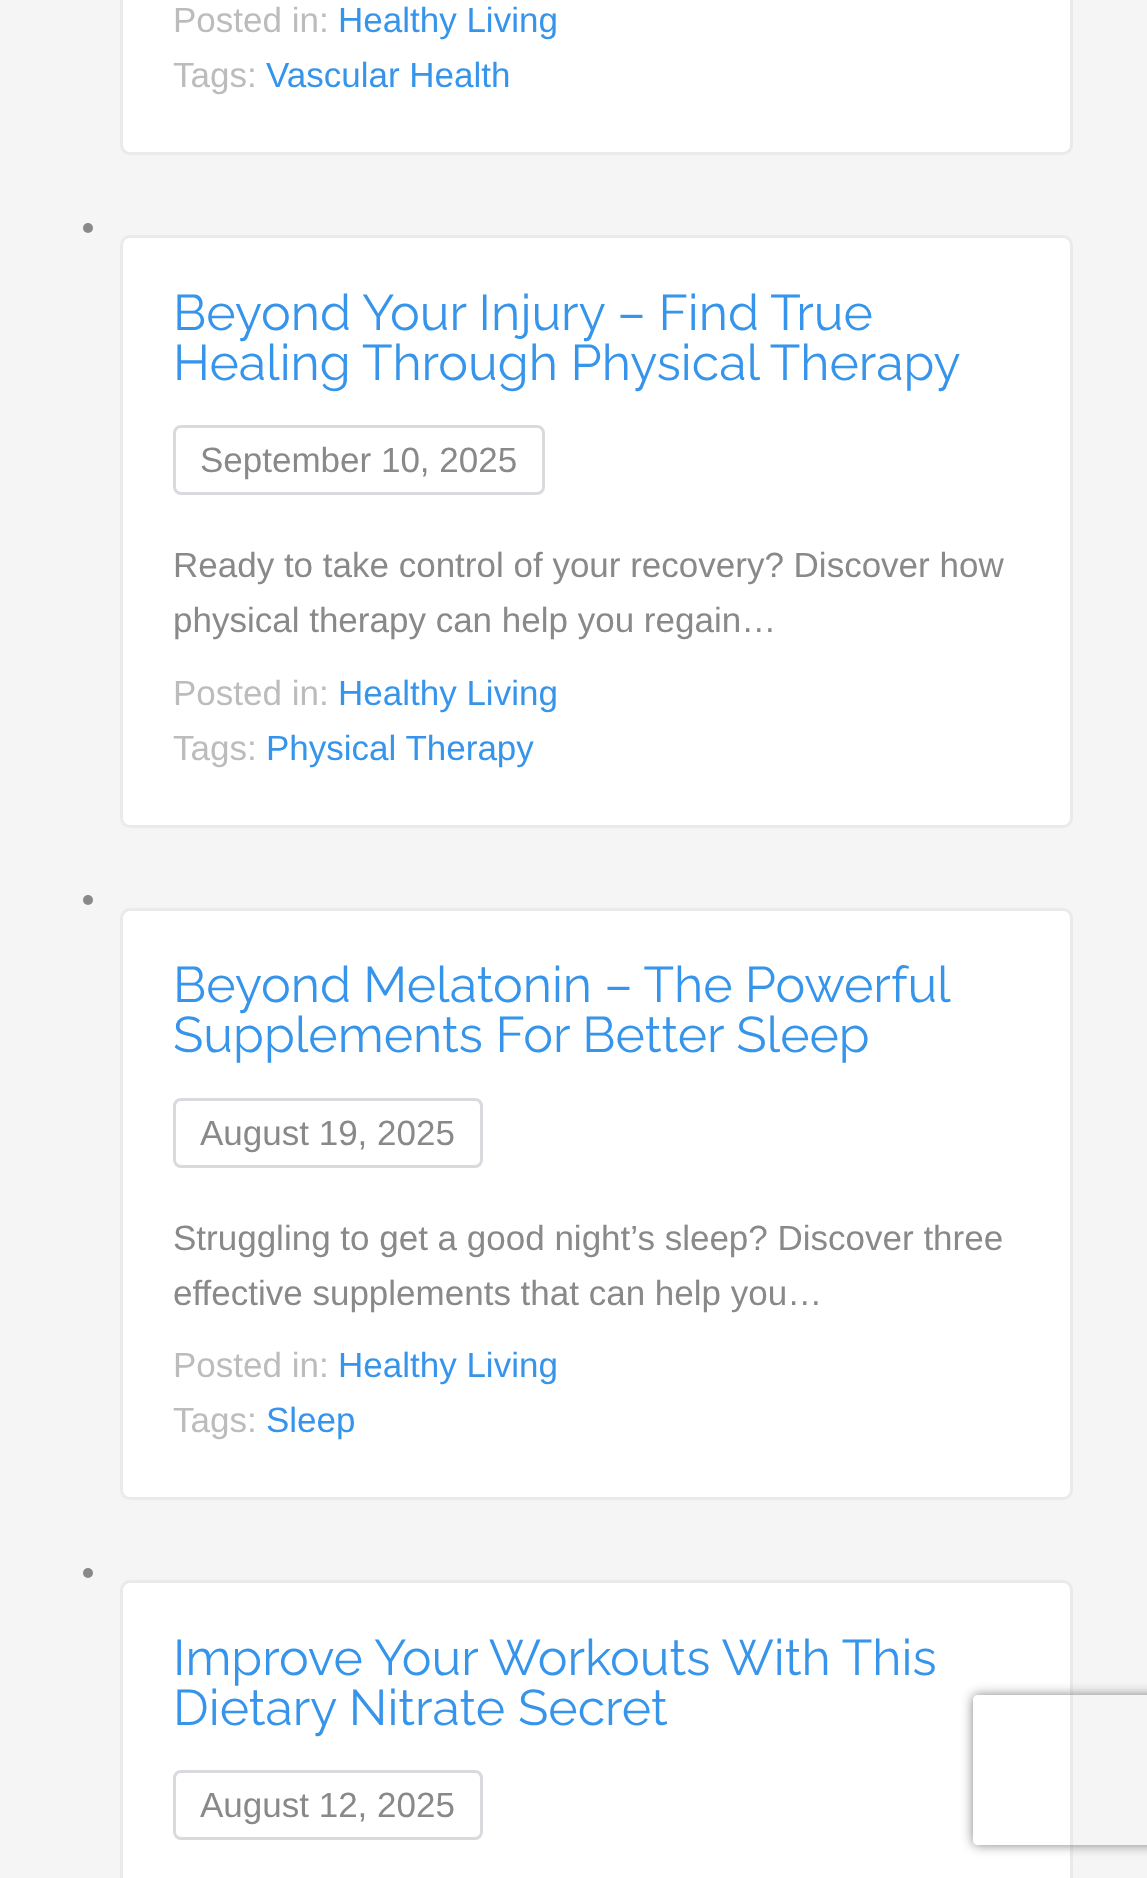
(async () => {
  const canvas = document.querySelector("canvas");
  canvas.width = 1147;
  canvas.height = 1878;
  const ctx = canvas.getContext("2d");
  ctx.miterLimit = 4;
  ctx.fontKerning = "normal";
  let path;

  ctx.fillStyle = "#f5f5f6";
  ctx.fillRect(0, 0, 1147, 1878);
  ctx.fillStyle = "#ffffff";
  ctx.beginPath();
  ctx.roundRect(121.5, -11.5, 950, 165, 8.5);
  ctx.fill();
  ctx.strokeStyle = "#eaeaec";
  ctx.lineWidth = 3;
  ctx.stroke();
  ctx.fillStyle = "#898989";
  ctx.beginPath();
  ctx.arc(88, 228, 5, 0, Math.PI * 2);
  ctx.fill();
  ctx.fillStyle = "#ffffff";
  ctx.beginPath();
  ctx.roundRect(121.5, 236.5, 950, 590, 8.5);
  ctx.fill();
  ctx.stroke();
  ctx.beginPath();
  ctx.roundRect(174.5, 426.5, 369, 67, 6.5);
  ctx.strokeStyle = "#dadade";
  ctx.stroke();
  ctx.fillStyle = "#898989";
  ctx.beginPath();
  ctx.arc(88, 900, 5, 0, Math.PI * 2);
  ctx.fill();
  ctx.fillStyle = "#ffffff";
  ctx.beginPath();
  ctx.roundRect(121.5, 909.5, 950, 589, 8.5);
  ctx.fill();
  ctx.strokeStyle = "#eaeaec";
  ctx.stroke();
  ctx.beginPath();
  ctx.roundRect(174.5, 1099.5, 307, 67, 6.5);
  ctx.strokeStyle = "#dadade";
  ctx.stroke();
  ctx.fillStyle = "#898989";
  ctx.beginPath();
  ctx.arc(88, 1573, 5, 0, Math.PI * 2);
  ctx.fill();
  ctx.fillStyle = "#ffffff";
  ctx.beginPath();
  ctx.roundRect(121.5, 1581.5, 950, 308, 8.5);
  ctx.fill();
  ctx.strokeStyle = "#eaeaec";
  ctx.stroke();
  ctx.beginPath();
  ctx.roundRect(174.5, 1771.5, 307, 67, 6.5);
  ctx.strokeStyle = "#dadade";
  ctx.stroke();
  ctx.save();
  path = new Path2D("M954 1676H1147V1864H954ZM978 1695H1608C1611 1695 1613 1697 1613 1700V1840C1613 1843 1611 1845 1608 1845H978C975 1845 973 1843 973 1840V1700C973 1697 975 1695 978 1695Z");
  ctx.clip(path, "evenodd");
  ctx.fillStyle = "#808080";
  ctx.filter = "blur(6px)";
  ctx.beginPath();
  ctx.roundRect(973, 1695, 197, 150, 5);
  ctx.fill();
  ctx.filter = "none";
  ctx.restore();
  ctx.font = "35px Liberation Sans";
  ctx.fillStyle = "#bcbcbc";
  ctx.fillText("Posted in:", 173, 32);
  ctx.fillStyle = "#3695eb";
  ctx.fillText("Healthy Living", 338, 32);
  ctx.fillStyle = "#bcbcbc";
  ctx.fillText("Tags:", 173, 87);
  ctx.fillStyle = "#3695eb";
  ctx.fillText("Vascular Health", 266, 87);
  ctx.font = "50px Raleway";
  ctx.fillText("Beyond Your Injury – Find True", 173, 330);
  ctx.fillText("Healing Through Physical Therapy", 173, 380);
  ctx.font = "35px Liberation Sans";
  ctx.fillStyle = "#898989";
  for (const [text, x, y] of [
    ["September 10, 2025", 200, 472],
    ["Ready to take control of your recovery? Discover how", 173, 577],
    ["physical therapy can help you regain…", 173, 632],
  ]) {
    ctx.fillText(text, x, y);
  }
  ctx.fillStyle = "#bcbcbc";
  ctx.fillText("Posted in:", 173, 705);
  ctx.fillStyle = "#3695eb";
  ctx.fillText("Healthy Living", 338, 705);
  ctx.fillStyle = "#bcbcbc";
  ctx.fillText("Tags:", 173, 760);
  ctx.fillStyle = "#3695eb";
  ctx.fillText("Physical Therapy", 266, 760);
  ctx.wordSpacing = "-0.5px";
  ctx.font = "50px Raleway";
  ctx.fillText("Beyond Melatonin – The Powerful", 173, 1002);
  ctx.wordSpacing = "0px";
  ctx.fillText("Supplements For Better Sleep", 173, 1052);
  ctx.font = "35px Liberation Sans";
  ctx.fillStyle = "#898989";
  for (const [text, x, y] of [
    ["August 19, 2025", 200, 1145],
    ["Struggling to get a good night’s sleep? Discover three", 173, 1250],
    ["effective supplements that can help you…", 173, 1305],
  ]) {
    ctx.fillText(text, x, y);
  }
  ctx.fillStyle = "#bcbcbc";
  ctx.fillText("Posted in:", 173, 1377);
  ctx.fillStyle = "#3695eb";
  ctx.fillText("Healthy Living", 338, 1377);
  ctx.fillStyle = "#bcbcbc";
  ctx.fillText("Tags:", 173, 1432);
  ctx.fillStyle = "#3695eb";
  ctx.fillText("Sleep", 266, 1432);
  ctx.font = "50px Raleway";
  ctx.fillText("Improve Your Workouts With This", 173, 1675);
  ctx.fillText("Dietary Nitrate Secret", 173, 1725);
  ctx.font = "35px Liberation Sans";
  ctx.fillStyle = "#898989";
  ctx.fillText("August 12, 2025", 200, 1817);
})();
